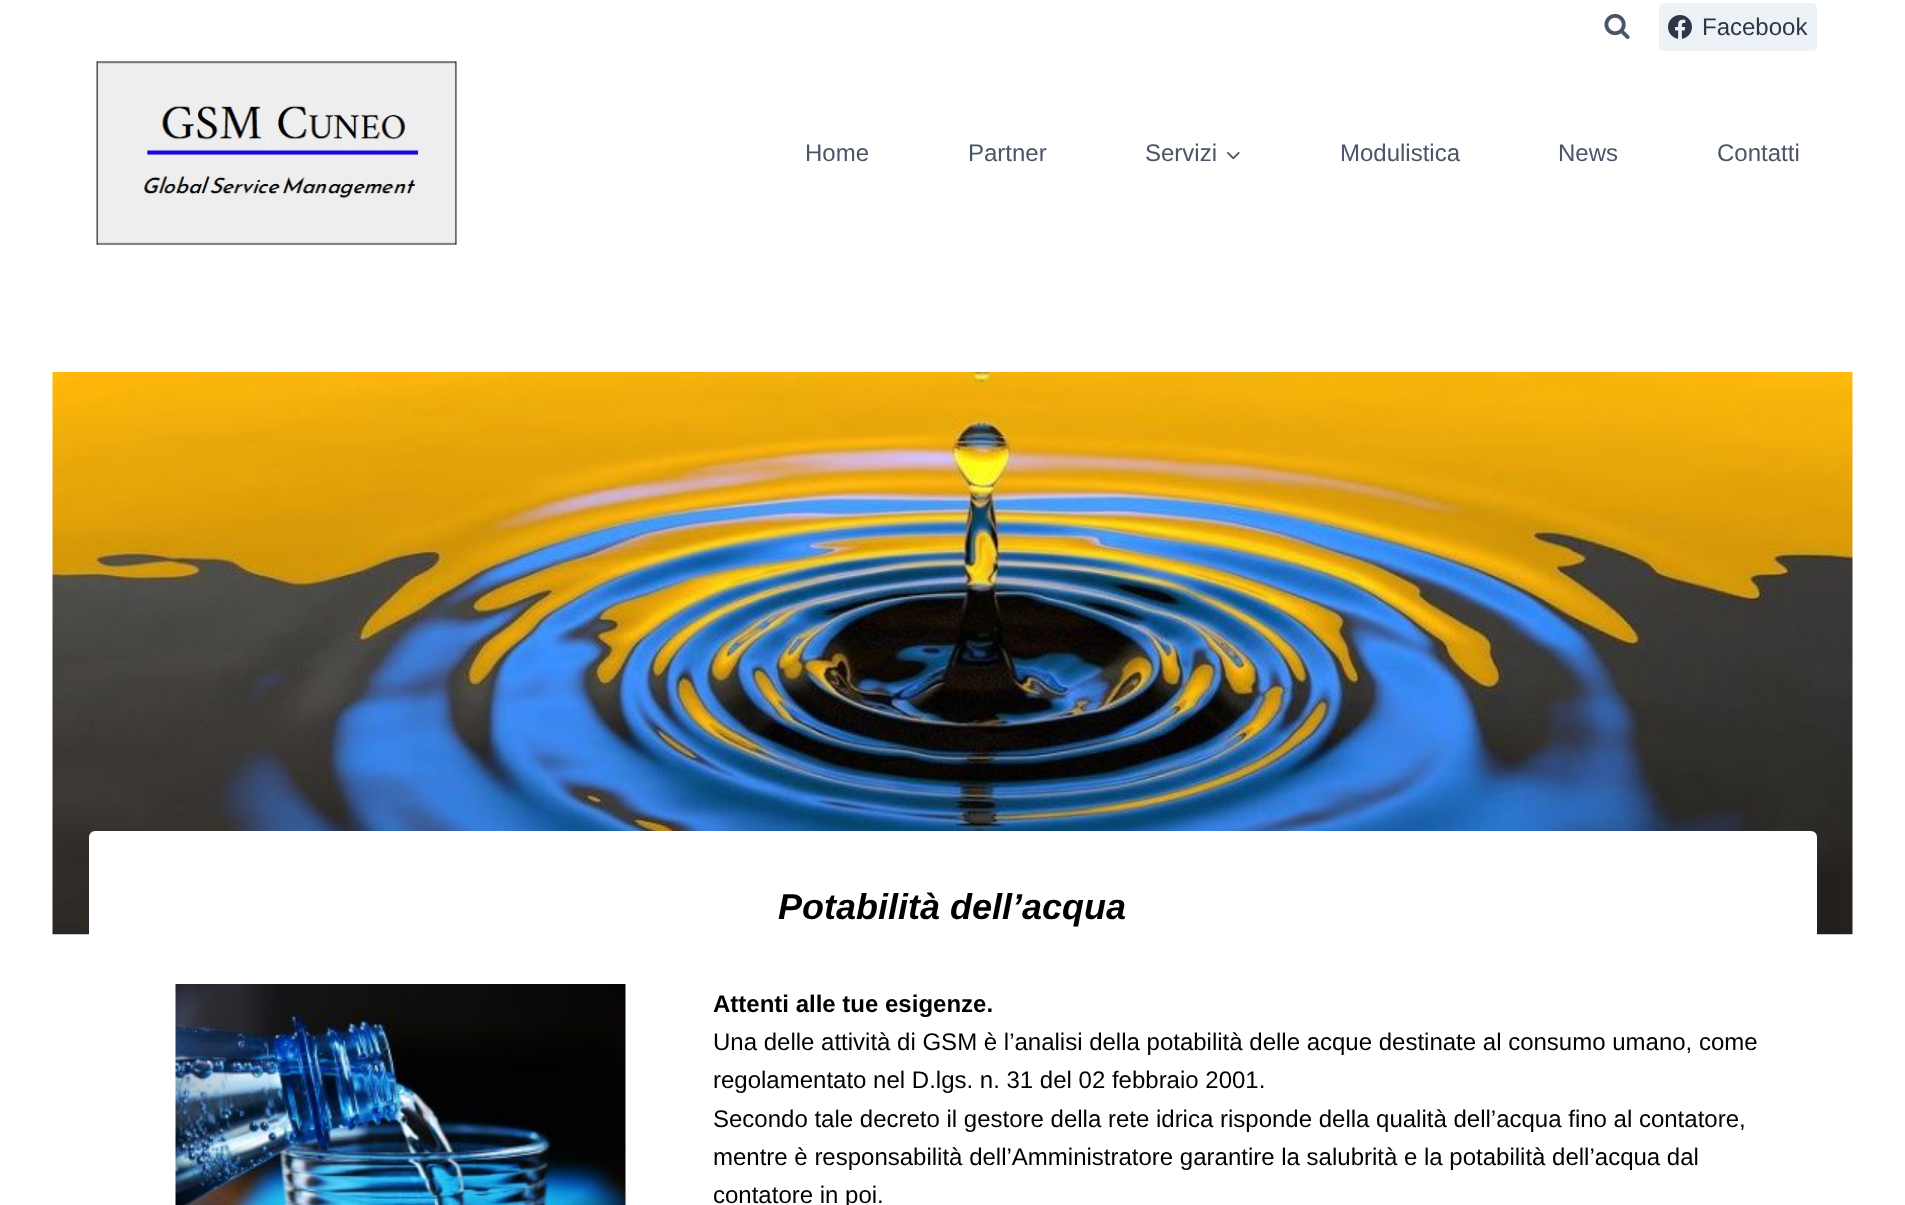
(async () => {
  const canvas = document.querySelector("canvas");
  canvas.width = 1905;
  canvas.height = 1205;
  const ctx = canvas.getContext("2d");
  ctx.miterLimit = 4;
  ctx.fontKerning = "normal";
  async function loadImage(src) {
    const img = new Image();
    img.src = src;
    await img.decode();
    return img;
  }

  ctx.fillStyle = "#ffffff";
  ctx.fillRect(0, 0, 1905, 1205);
  ctx.drawImage(await loadImage("img/1.png"), 1604, 13, 26, 26);
  ctx.fillStyle = "#edf2f7";
  ctx.beginPath();
  ctx.roundRect(1659, 3, 158, 48, 5);
  ctx.fill();
  ctx.drawImage(await loadImage("img/2.png"), 1668, 15, 24, 24);
  ctx.drawImage(await loadImage("img/3.png"), 96, 61, 361, 184);
  ctx.drawImage(await loadImage("img/4.png"), 1227, 152, 13, 8);
  ctx.drawImage(await loadImage("img/5.png"), 52, 372, 1801, 563);
  ctx.fillStyle = "#ffffff";
  ctx.beginPath();
  ctx.roundRect(89, 831, 1728, 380, 6);
  ctx.fill();
  ctx.drawImage(await loadImage("img/6.png"), 175, 984, 451, 221);
  ctx.font = "24px Liberation Sans";
  ctx.fillStyle = "#2d3748";
  ctx.fillText("Facebook", 1702, 35);
  ctx.fillStyle = "#4a5568";
  for (const [text, x, y] of [
    ["Home", 805, 161],
    ["Partner", 968, 161],
    ["Servizi", 1145, 161],
    ["Modulistica", 1340, 161],
    ["News", 1558, 161],
    ["Contatti", 1717, 161],
  ]) {
    ctx.fillText(text, x, y);
  }
  ctx.font = "italic bold 36px Liberation Sans";
  ctx.fillStyle = "#000000";
  ctx.fillText("Potabilità dell’acqua", 778, 919);
  ctx.font = "bold 24px Liberation Sans";
  ctx.fillText("Attenti alle tue esigenze.", 713, 1012);
  ctx.font = "24px Liberation Sans";
  for (const [text, x, y] of [
    ["Una delle attività di GSM è l’analisi della potabilità delle acque destinate al consumo umano, come", 713, 1050],
    ["regolamentato nel D.lgs. n. 31 del 02 febbraio 2001.", 713, 1088],
    ["Secondo tale decreto il gestore della rete idrica risponde della qualità dell’acqua fino al contatore,", 713, 1127],
    ["mentre è responsabilità dell’Amministratore garantire la salubrità e la potabilità dell’acqua dal", 713, 1165],
    ["contatore in poi.", 713, 1203],
  ]) {
    ctx.fillText(text, x, y);
  }
})();
